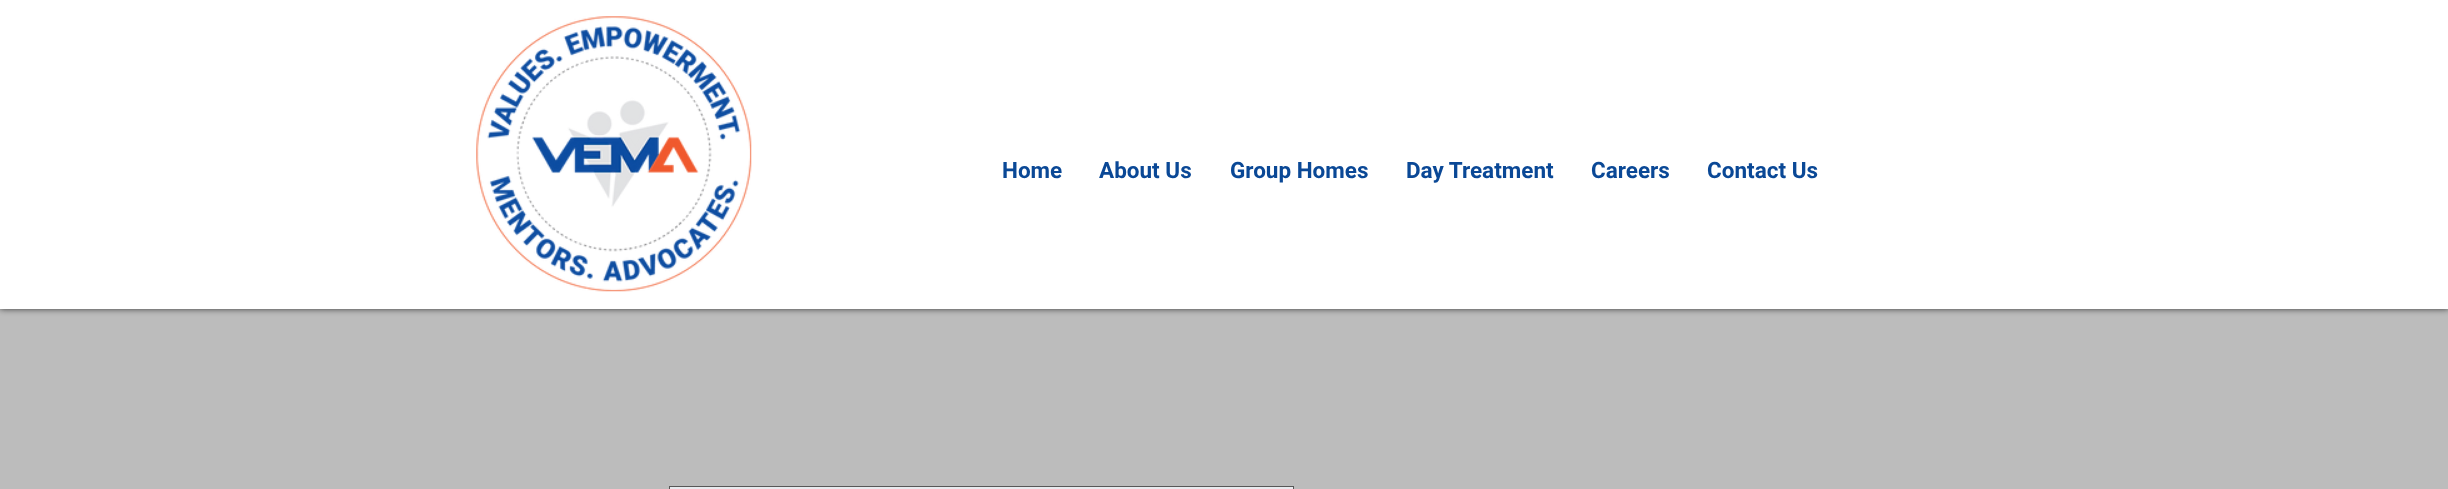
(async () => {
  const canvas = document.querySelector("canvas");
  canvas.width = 2448;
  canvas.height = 489;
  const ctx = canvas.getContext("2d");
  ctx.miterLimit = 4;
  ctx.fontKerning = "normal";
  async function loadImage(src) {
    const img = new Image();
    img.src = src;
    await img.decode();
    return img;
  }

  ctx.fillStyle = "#bcbcbc";
  ctx.fillRect(0, 0, 2448, 489);
  ctx.fillStyle = "rgba(0, 0, 0, 0.7)";
  ctx.filter = "blur(3px)";
  ctx.beginPath();
  ctx.rect(0, 0, 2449, 309);
  ctx.fill();
  ctx.filter = "none";
  ctx.fillStyle = "#ffffff";
  ctx.fillRect(0, 0, 2448, 309);
  ctx.drawImage(await loadImage("img/1.png"), 476, 16, 276, 276);
  ctx.strokeStyle = "#575757";
  ctx.strokeRect(669.5, 486.5, 624, 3);
  ctx.fillStyle = "#e8eaee";
  ctx.fillRect(670, 487, 623, 2);
  ctx.font = "bold 22.5px Roboto";
  ctx.fillStyle = "#0a4896";
  for (const [text, x, y] of [
    ["Home", 1002, 178],
    ["About Us", 1099, 178],
    ["Group Homes", 1230, 178],
    ["Day Treatment", 1406, 178],
    ["Careers", 1591, 178],
    ["Contact Us", 1707, 178],
  ]) {
    ctx.fillText(text, x, y);
  }
})();
